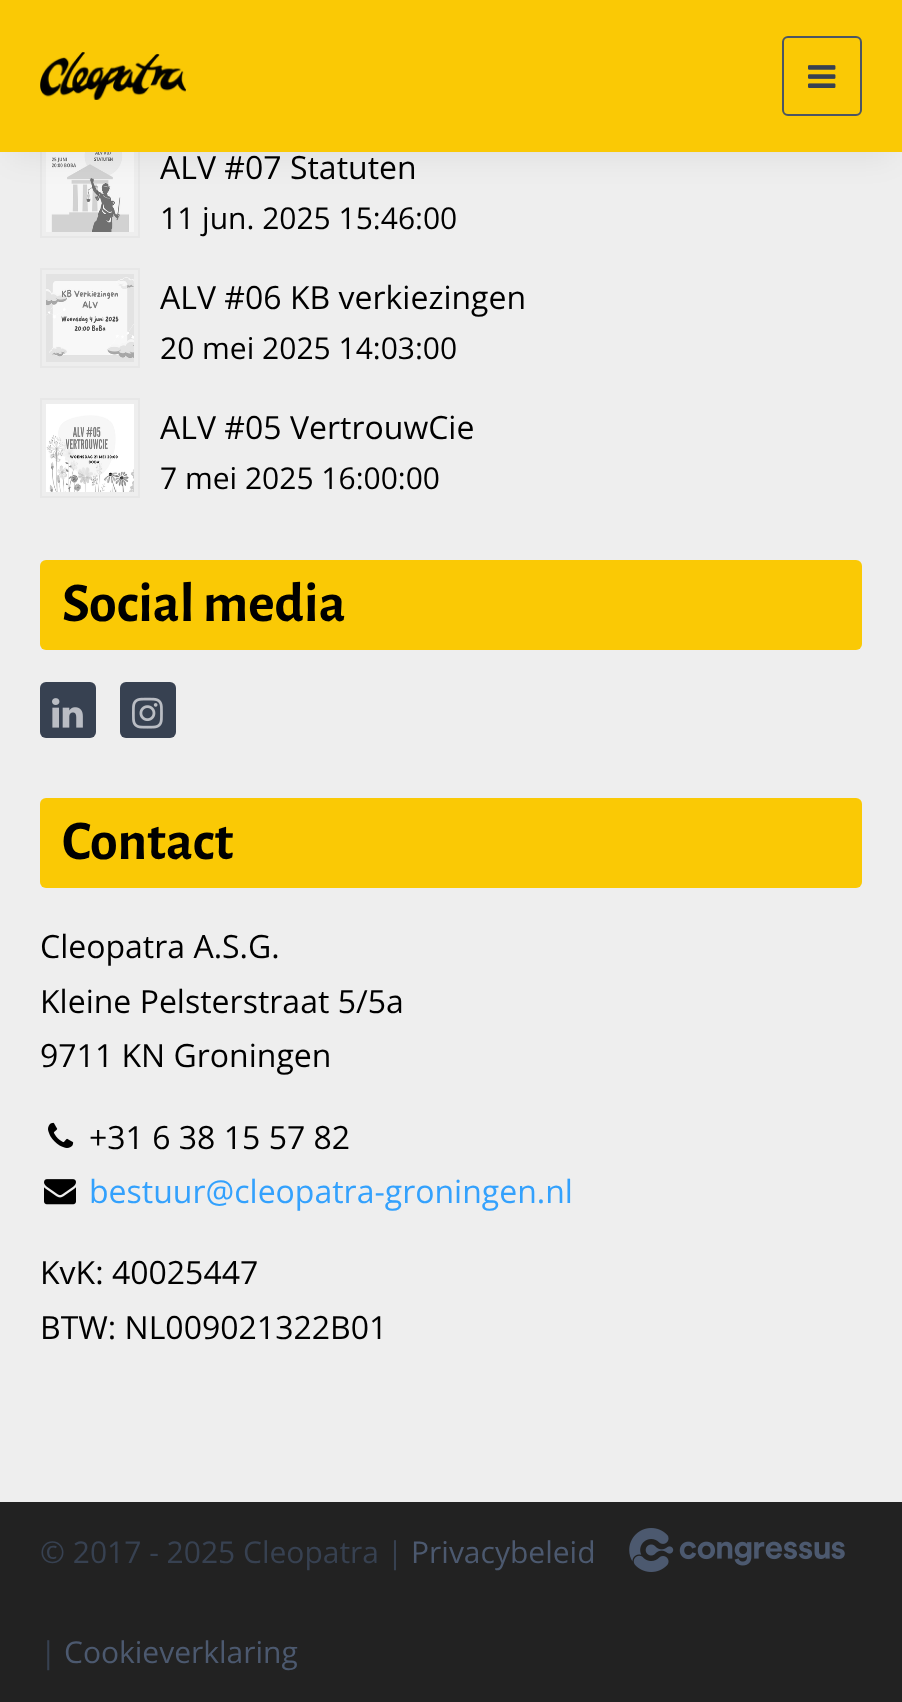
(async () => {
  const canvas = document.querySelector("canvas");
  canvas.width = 902;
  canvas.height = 1702;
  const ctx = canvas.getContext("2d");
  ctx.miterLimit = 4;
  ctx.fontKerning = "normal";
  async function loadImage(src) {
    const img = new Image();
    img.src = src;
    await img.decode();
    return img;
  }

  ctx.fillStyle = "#eeeeee";
  ctx.fillRect(0, 0, 902, 1702);
  ctx.strokeStyle = "#e7e7e7";
  ctx.lineWidth = 2;
  ctx.strokeRect(41, 139, 98, 98);
  ctx.drawImage(await loadImage("img/3.png"), 46, 152, 88, 80);
  ctx.fillStyle = "rgba(0, 0, 0, 0.06)";
  ctx.filter = "blur(15px)";
  ctx.beginPath();
  ctx.rect(10, 26, 882, 132);
  ctx.fill();
  ctx.filter = "none";
  ctx.fillStyle = "#fac905";
  ctx.fillRect(0, 0, 902, 152);
  ctx.drawImage(await loadImage("img/1.png"), 40, 52, 146, 48);
  ctx.beginPath();
  ctx.roundRect(783, 37, 78, 78, 5);
  ctx.strokeStyle = "#4b5563";
  ctx.stroke();
  ctx.drawImage(await loadImage("img/2.png"), 808, 65, 28, 23);
  ctx.strokeStyle = "#e7e7e7";
  ctx.strokeRect(41, 269, 98, 98);
  ctx.drawImage(await loadImage("img/4.png"), 46, 274, 88, 88);
  ctx.strokeRect(41, 399, 98, 98);
  ctx.drawImage(await loadImage("img/5.png"), 46, 404, 88, 88);
  ctx.beginPath();
  ctx.roundRect(40, 560, 822, 90, 6);
  ctx.fill();
  ctx.fillStyle = "#374151";
  ctx.beginPath();
  ctx.roundRect(40, 682, 56, 56, 6);
  ctx.fill();
  ctx.drawImage(await loadImage("img/6.png"), 52, 698, 31, 30);
  ctx.beginPath();
  ctx.roundRect(120, 682, 56, 56, 6);
  ctx.fill();
  ctx.drawImage(await loadImage("img/7.png"), 132, 697, 31, 32);
  ctx.fillStyle = "#fac905";
  ctx.beginPath();
  ctx.roundRect(40, 798, 822, 90, 6);
  ctx.fill();
  ctx.drawImage(await loadImage("img/8.png"), 48, 1122, 26, 26);
  ctx.drawImage(await loadImage("img/9.png"), 44, 1179, 32, 26);
  ctx.fillStyle = "#222222";
  ctx.fillRect(0, 1502, 902, 200);
  ctx.drawImage(await loadImage("img/10.png"), 629, 1528, 216, 44);
  ctx.font = "32px Open Sans";
  ctx.fillStyle = "#000000";
  ctx.fillText("ALV #07 Statuten", 160, 179);
  ctx.font = "30px Open Sans";
  ctx.fillText("11 jun. 2025 15:46:00", 160, 229);
  ctx.font = "32px Open Sans";
  ctx.fillText("ALV #06 KB verkiezingen", 160, 309);
  ctx.font = "30px Open Sans";
  ctx.fillText("20 mei 2025 14:03:00", 160, 359);
  ctx.font = "32px Open Sans";
  ctx.fillText("ALV #05 VertrouwCie", 160, 439);
  ctx.font = "30px Open Sans";
  ctx.fillText("7 mei 2025 16:00:00", 160, 489);
  ctx.font = "bold 56px Alegreya Sans";
  ctx.fillText("Social media", 62, 621);
  ctx.fillText("Contact", 62, 859);
  ctx.font = "32px Open Sans";
  for (const [text, x, y] of [
    ["Cleopatra A.S.G.", 40, 958],
    ["Kleine Pelsterstraat 5/5a", 40, 1013],
    ["9711 KN Groningen", 40, 1067],
    ["+31 6 38 15 57 82", 89, 1149],
  ]) {
    ctx.fillText(text, x, y);
  }
  ctx.fillStyle = "#33a1fd";
  ctx.fillText("bestuur@cleopatra-groningen.nl", 89, 1203);
  ctx.fillStyle = "#000000";
  ctx.fillText("KvK: 40025447", 40, 1284);
  ctx.fillText("BTW: NL009021322B01", 40, 1339);
  ctx.font = "30px Open Sans";
  ctx.fillStyle = "#374151";
  ctx.fillText("© 2017 - 2025 Cleopatra |", 40, 1563);
  ctx.fillStyle = "#4c596f";
  ctx.fillText("Privacybeleid", 411, 1563);
  ctx.fillStyle = "#374151";
  ctx.fillText("|", 40, 1663);
  ctx.fillStyle = "#4c596f";
  ctx.fillText("Cookieverklaring", 64, 1663);
})();
